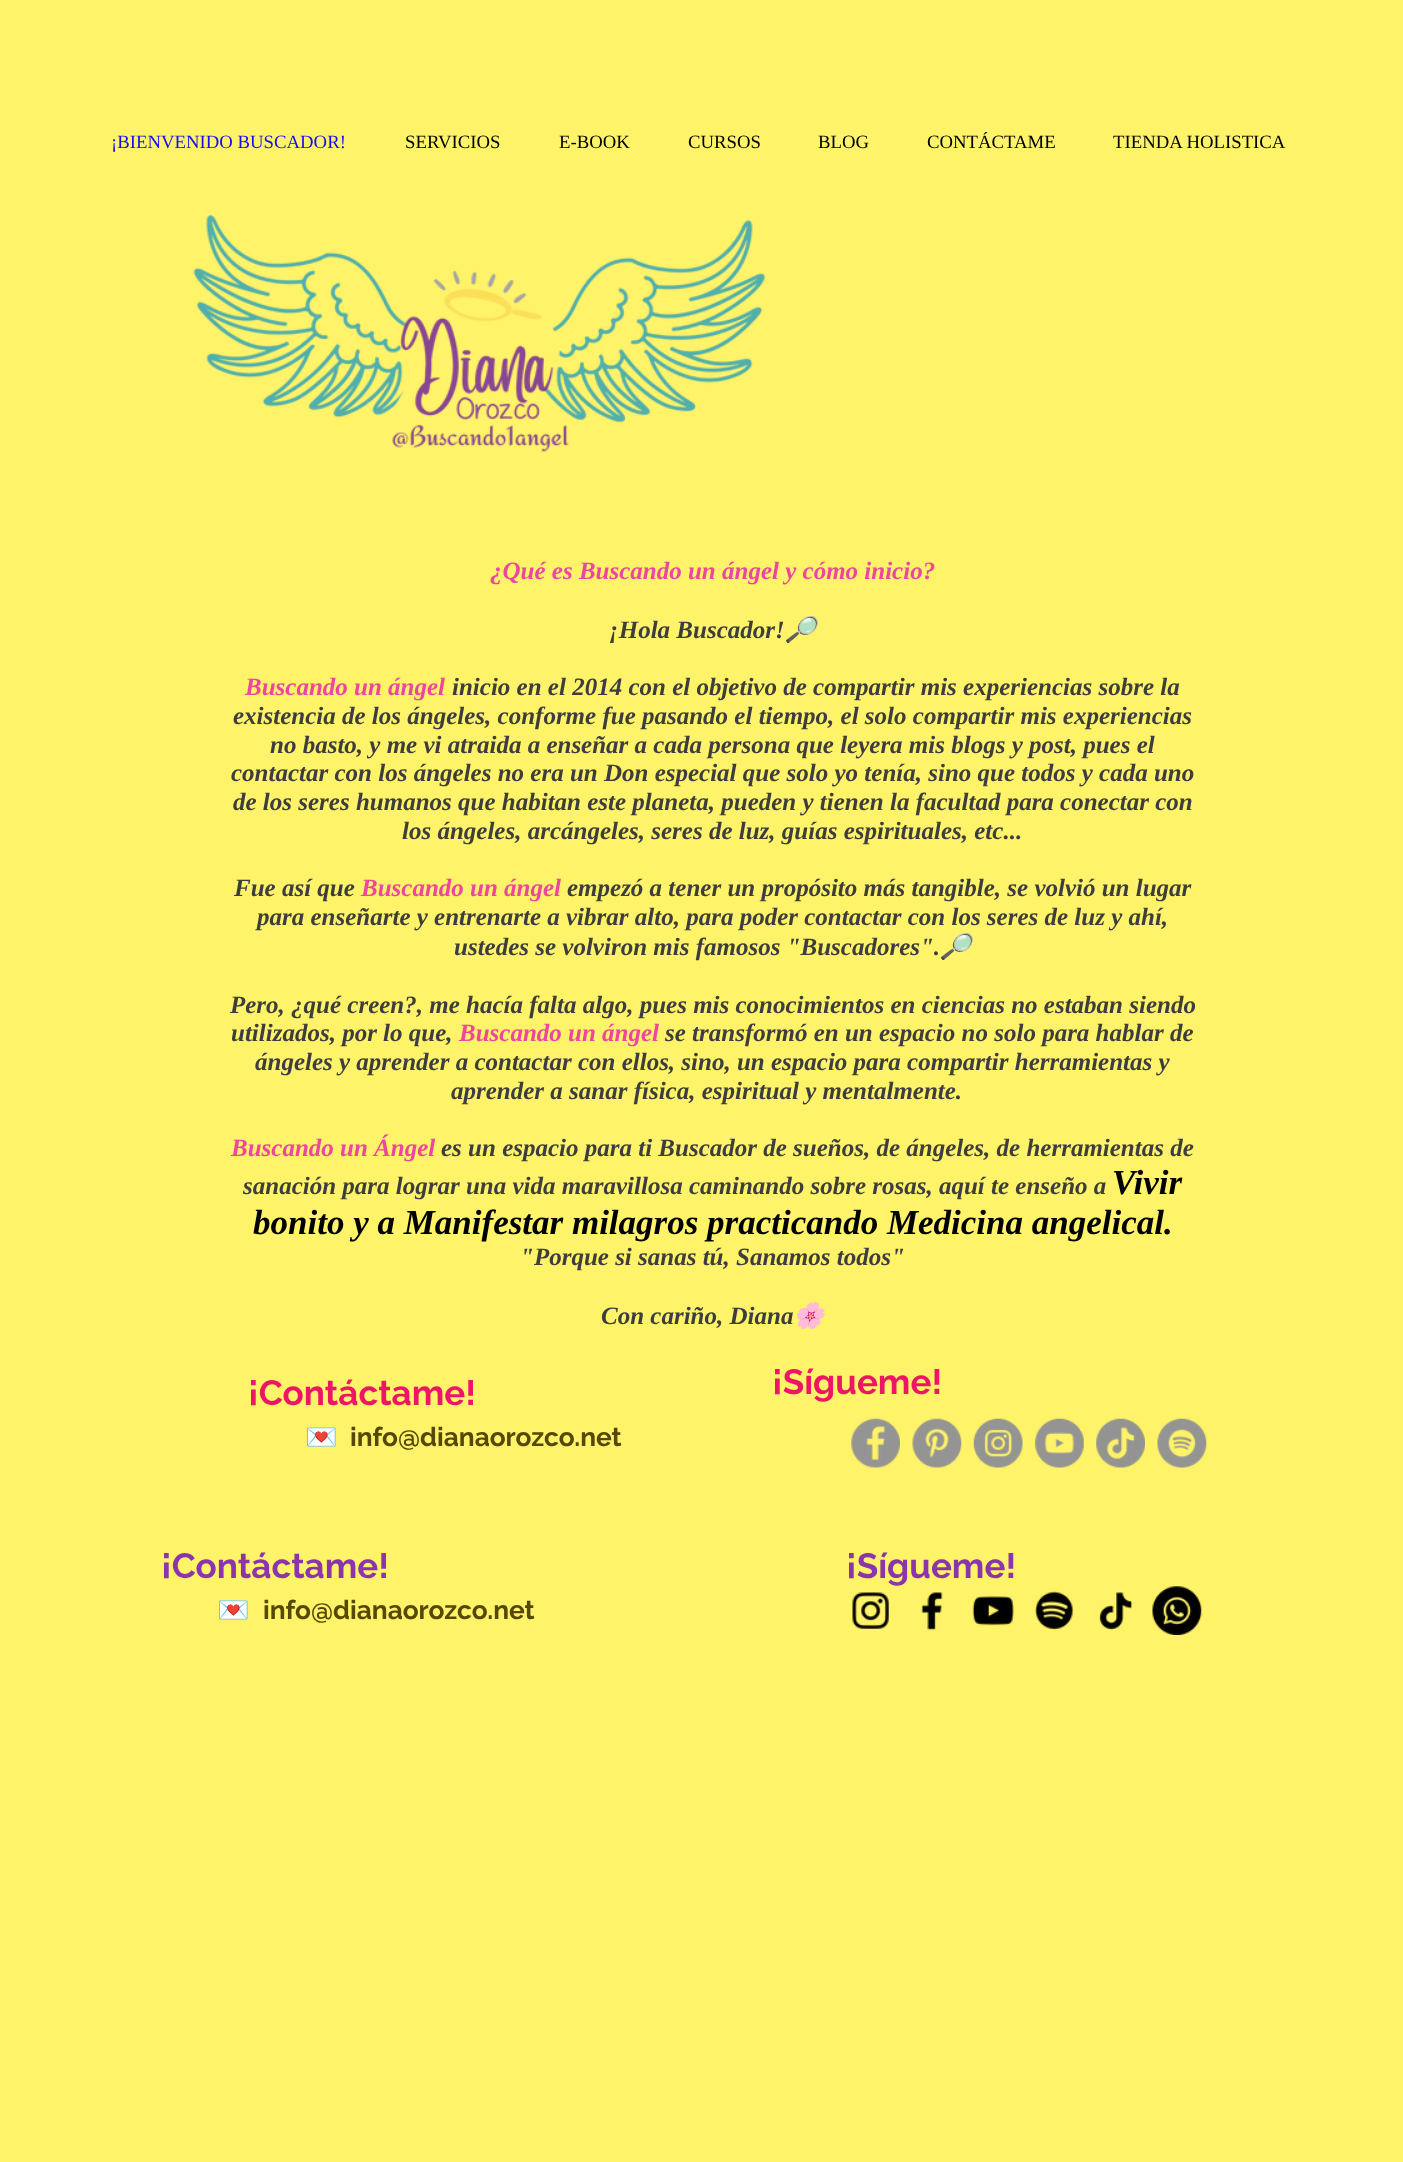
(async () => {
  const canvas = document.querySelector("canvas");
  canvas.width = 1403;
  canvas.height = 2162;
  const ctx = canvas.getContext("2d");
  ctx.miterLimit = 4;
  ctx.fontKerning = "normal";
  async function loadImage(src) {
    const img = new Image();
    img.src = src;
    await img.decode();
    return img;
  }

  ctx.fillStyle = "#fff369";
  ctx.fillRect(0, 0, 1403, 2162);
  ctx.drawImage(await loadImage("img/1.png"), 193, 214, 573, 238);
  ctx.drawImage(await loadImage("img/2.png"), 851, 1418, 49, 50);
  ctx.drawImage(await loadImage("img/3.png"), 912, 1418, 50, 50);
  ctx.drawImage(await loadImage("img/4.png"), 973, 1418, 50, 50);
  ctx.drawImage(await loadImage("img/5.png"), 1035, 1418, 49, 50);
  ctx.drawImage(await loadImage("img/6.png"), 1096, 1418, 49, 50);
  ctx.drawImage(await loadImage("img/7.png"), 1157, 1418, 50, 50);
  ctx.drawImage(await loadImage("img/8.png"), 852, 1592, 37, 37);
  ctx.drawImage(await loadImage("img/9.png"), 921, 1592, 22, 39);
  ctx.drawImage(await loadImage("img/10.png"), 972, 1596, 42, 30);
  ctx.drawImage(await loadImage("img/11.png"), 1035, 1591, 39, 39);
  ctx.drawImage(await loadImage("img/12.png"), 1099, 1592, 34, 38);
  ctx.drawImage(await loadImage("img/13.png"), 1152, 1586, 50, 49);
  ctx.font = "18.75px Liberation Serif";
  ctx.fillStyle = "#170df2";
  ctx.fillText("¡BIENVENIDO BUSCADOR!", 111, 148);
  ctx.fillStyle = "#000000";
  for (const [text, x, y] of [
    ["SERVICIOS", 405, 148],
    ["E-BOOK", 559, 148],
    ["CURSOS", 688, 148],
    ["BLOG", 818, 148],
    ["CONTÁCTAME", 927, 148],
    ["TIENDA HOLISTICA", 1113, 148],
  ]) {
    ctx.fillText(text, x, y);
  }
  ctx.font = "italic bold 25px Liberation Serif";
  ctx.fillStyle = "#ed45a0";
  ctx.fillText("¿Qué es Buscando un ángel y cómo inicio?", 490, 579);
  ctx.fillStyle = "#3d3d3d";
  ctx.fillText("¡Hola Buscador!", 609, 638);
  ctx.font = "italic bold 25px Noto Color Emoji";
  ctx.fillText("🔎", 785, 638);
  ctx.font = "italic bold 25px Liberation Serif";
  ctx.fillStyle = "#ed45a0";
  ctx.fillText("Buscando un ángel", 245, 695);
  ctx.fillStyle = "#3d3d3d";
  for (const [text, x, y] of [
    ["inicio en el 2014 con el objetivo de compartir mis experiencias sobre la", 452, 695],
    ["existencia de los ángeles, conforme fue pasando el tiempo, el solo compartir mis experiencias", 233, 724],
    ["no basto, y me vi atraida a enseñar a cada persona que leyera mis blogs y post, pues el", 270, 753],
    ["contactar con los ángeles no era un Don especial que solo yo tenía, sino que todos y cada uno", 231, 781],
    ["de los seres humanos que habitan este planeta, pueden y tienen la facultad para conectar con", 233, 810],
    ["los ángeles, arcángeles, seres de luz, guías espirituales, etc...", 402, 839],
    ["Fue así que", 234, 896],
  ]) {
    ctx.fillText(text, x, y);
  }
  ctx.fillStyle = "#ed45a0";
  ctx.fillText("Buscando un ángel", 361, 896);
  ctx.fillStyle = "#3d3d3d";
  for (const [text, x, y] of [
    ["empezó a tener un propósito más tangible, se volvió un lugar", 567, 896],
    ["para enseñarte y entrenarte a vibrar alto, para poder contactar con los seres de luz y ahí,", 257, 925],
    ["ustedes se volviron mis famosos \"Buscadores\".", 454, 955],
  ]) {
    ctx.fillText(text, x, y);
  }
  ctx.font = "italic bold 25px Noto Color Emoji";
  ctx.fillText("🔎", 940, 955);
  ctx.font = "italic bold 25px Liberation Serif";
  ctx.fillText("Pero, ¿qué creen?, me hacía falta algo, pues mis conocimientos en ciencias no estaban siendo", 230, 1013);
  ctx.fillText("utilizados, por lo que,", 231, 1041);
  ctx.fillStyle = "#ed45a0";
  ctx.fillText("Buscando un ángel", 459, 1041);
  ctx.fillStyle = "#3d3d3d";
  for (const [text, x, y] of [
    ["se transformó en un espacio no solo para hablar de", 665, 1041],
    ["ángeles y aprender a contactar con ellos, sino, un espacio para compartir herramientas y", 255, 1070],
    ["aprender a sanar física, espiritual y mentalmente.", 451, 1099],
  ]) {
    ctx.fillText(text, x, y);
  }
  ctx.fillStyle = "#ed45a0";
  ctx.fillText("Buscando un Ángel", 231, 1156);
  ctx.fillStyle = "#3d3d3d";
  ctx.fillText("es un espacio para ti Buscador de sueños, de ángeles, de herramientas de", 441, 1156);
  ctx.fillText("sanación para lograr una vida maravillosa caminando sobre rosas, aquí te enseño a", 243, 1194);
  ctx.font = "italic bold 35px Liberation Serif";
  ctx.fillStyle = "#000000";
  ctx.fillText("Vivir", 1112, 1194);
  ctx.fillText("bonito y a Manifestar milagros practicando Medicina angelical.", 253, 1234);
  ctx.font = "italic bold 25px Liberation Serif";
  ctx.fillStyle = "#3d3d3d";
  ctx.fillText("\"Porque si sanas tú, Sanamos todos\"", 520, 1265);
  ctx.fillText("Con cariño, Diana", 601, 1324);
  ctx.font = "italic bold 25px Noto Color Emoji";
  ctx.fillText("🌸", 793, 1324);
  ctx.font = "bold 35px Raleway";
  ctx.fillStyle = "#ed1566";
  ctx.fillText("¡Contáctame!", 248, 1405);
  ctx.font = "bold 26.25px Noto Color Emoji";
  ctx.fillStyle = "#544804";
  ctx.fillText("💌", 305, 1446);
  ctx.font = "bold 26.25px Raleway";
  ctx.fillText("info@dianaorozco.net", 350, 1446);
  ctx.font = "bold 35px Raleway";
  ctx.fillStyle = "#ed1566";
  ctx.fillText("¡Sígueme!", 772, 1394);
  ctx.fillStyle = "#8b34ac";
  ctx.fillText("¡Contáctame!", 161, 1578);
  ctx.font = "bold 26.25px Noto Color Emoji";
  ctx.fillStyle = "#544804";
  ctx.fillText("💌", 217, 1619);
  ctx.font = "bold 26.25px Raleway";
  ctx.fillText("info@dianaorozco.net", 263, 1619);
  ctx.font = "bold 35px Raleway";
  ctx.fillStyle = "#8b34ac";
  ctx.fillText("¡Sígueme!", 846, 1578);
})();
